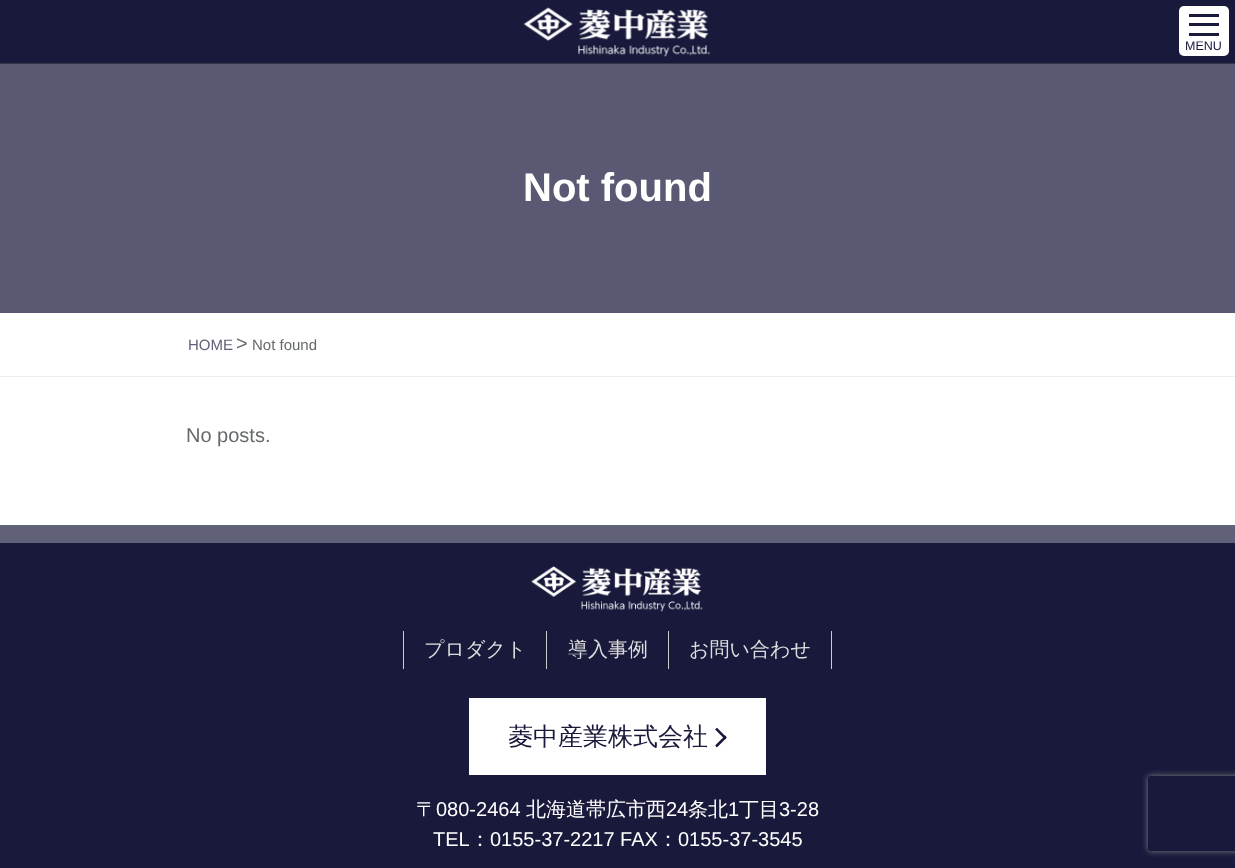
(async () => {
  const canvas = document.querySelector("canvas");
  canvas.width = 1235;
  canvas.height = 868;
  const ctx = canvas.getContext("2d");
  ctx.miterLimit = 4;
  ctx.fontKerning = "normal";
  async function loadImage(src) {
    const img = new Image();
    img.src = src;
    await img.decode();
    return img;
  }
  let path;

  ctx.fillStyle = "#ffffff";
  ctx.fillRect(0, 0, 1235, 868);
  ctx.fillStyle = "#595974";
  ctx.fillRect(0, 63, 1235, 250);
  ctx.fillStyle = "rgba(0, 0, 0, 0.4)";
  ctx.filter = "blur(0.5px)";
  ctx.beginPath();
  ctx.rect(0, 1, 1235, 63);
  ctx.fill();
  ctx.filter = "none";
  ctx.fillStyle = "#19193c";
  ctx.fillRect(0, 0, 1235, 63);
  ctx.drawImage(await loadImage("img/1.png"), 523, 7, 187, 50);
  ctx.fillStyle = "#ffffff";
  ctx.beginPath();
  ctx.roundRect(1179, 6, 50, 50, 5);
  ctx.fill();
  for (const [x, y, w, h, color] of [
    [1189, 14, 30, 3, "#19193c"],
    [1189, 23, 30, 3, "#19193c"],
    [1189, 33, 30, 3, "#19193c"],
    [0, 376, 1235, 1, "#ededed"],
    [0, 543, 1235, 325, "#19193c"],
    [0, 525, 1235, 18, "#606078"],
  ]) {
    ctx.fillStyle = color;
    ctx.fillRect(x, y, w, h);
  }
  ctx.drawImage(await loadImage("img/2.png"), 531, 566, 172, 46);
  for (const [x, y, w, h, color] of [
    [403, 631, 1, 38, "#cccccc"],
    [546, 631, 1, 38, "#cccccc"],
    [831, 631, 1, 38, "#cccccc"],
    [668, 631, 1, 38, "#cccccc"],
    [469, 698, 297, 77, "#ffffff"],
  ]) {
    ctx.fillStyle = color;
    ctx.fillRect(x, y, w, h);
  }
  ctx.save();
  ctx.beginPath();
  ctx.rect(715, 728, 11, 20);
  ctx.clip();
  path = new Path2D("M716 728.5L726 738.5");
  ctx.strokeStyle = "#19193c";
  ctx.lineWidth = 2.5;
  ctx.stroke(path);
  ctx.restore();
  path = new Path2D("M716 746.5L726 736.5");
  ctx.strokeStyle = "#19193c";
  ctx.lineWidth = 2.5;
  ctx.stroke(path);
  ctx.save();
  path = new Path2D("M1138 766H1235V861H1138ZM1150.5 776H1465.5C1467 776 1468 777 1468 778.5V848.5C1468 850 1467 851 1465.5 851H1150.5C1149 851 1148 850 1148 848.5V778.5C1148 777 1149 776 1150.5 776Z");
  ctx.clip(path, "evenodd");
  ctx.fillStyle = "#808080";
  ctx.filter = "blur(3px)";
  ctx.beginPath();
  ctx.roundRect(1148, 776, 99, 75, 2.5);
  ctx.fill();
  ctx.filter = "none";
  ctx.restore();
  ctx.font = "12.5px Liberation Sans";
  ctx.fillStyle = "#19193c";
  ctx.fillText("MENU", 1185, 50);
  ctx.font = "bold 40px Liberation Sans";
  ctx.fillStyle = "#ffffff";
  ctx.fillText("Not found", 523, 201);
  ctx.font = "15px Liberation Sans";
  ctx.fillStyle = "#606078";
  ctx.fillText("HOME", 188, 350);
  ctx.font = "20px Liberation Sans";
  ctx.fillStyle = "#66696b";
  ctx.fillText(">", 236, 350);
  ctx.font = "15px Liberation Sans";
  ctx.fillText("Not found", 252, 350);
  ctx.font = "20px Liberation Sans";
  ctx.fillText("No posts.", 186, 442);
  ctx.font = "500 20px WenQuanYi Zen Hei";
  ctx.fillStyle = "#dddddd";
  for (const [text, x, y] of [
    ["プロダクト", 424, 656],
    ["導入事例", 568, 656],
    ["お問い合わせ", 689, 656],
  ]) {
    ctx.fillText(text, x, y);
  }
  ctx.font = "500 25px WenQuanYi Zen Hei";
  ctx.fillStyle = "#19193c";
  ctx.fillText("菱中産業株式会社", 508, 745);
  ctx.font = "500 20px WenQuanYi Zen Hei";
  ctx.fillStyle = "#ffffff";
  ctx.fillText("〒", 416, 816);
  ctx.font = "20px Liberation Sans";
  ctx.fillText("080-2464", 436, 816);
  ctx.font = "500 20px WenQuanYi Zen Hei";
  ctx.fillText("北海道帯広市西", 526, 816);
  ctx.font = "20px Liberation Sans";
  ctx.fillText("24", 666, 816);
  ctx.font = "500 20px WenQuanYi Zen Hei";
  ctx.fillText("条北", 688, 816);
  ctx.font = "20px Liberation Sans";
  ctx.fillText("1", 728, 816);
  ctx.font = "500 20px WenQuanYi Zen Hei";
  ctx.fillText("丁目", 739, 816);
  ctx.font = "20px Liberation Sans";
  ctx.fillText("3-28", 779, 816);
  ctx.fillText("TEL", 433, 846);
  ctx.font = "500 20px WenQuanYi Zen Hei";
  ctx.fillText("：", 470, 846);
  ctx.font = "20px Liberation Sans";
  ctx.fillText("0155-37-2217 FAX", 490, 846);
  ctx.font = "500 20px WenQuanYi Zen Hei";
  ctx.fillText("：", 658, 846);
  ctx.font = "20px Liberation Sans";
  ctx.fillText("0155-37-3545", 678, 846);
})();
